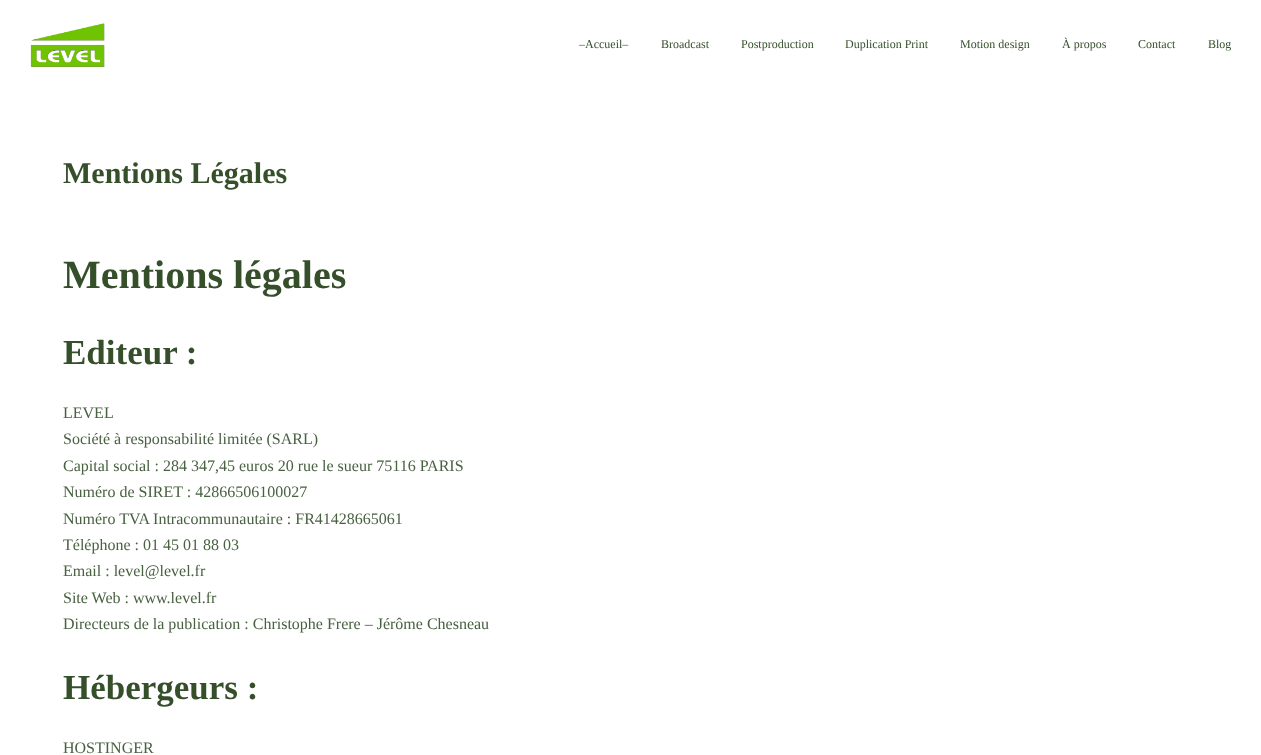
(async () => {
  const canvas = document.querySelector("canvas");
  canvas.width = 1261;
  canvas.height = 755;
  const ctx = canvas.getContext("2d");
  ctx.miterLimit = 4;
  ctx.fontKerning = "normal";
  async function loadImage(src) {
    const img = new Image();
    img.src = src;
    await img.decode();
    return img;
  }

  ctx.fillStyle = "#ffffff";
  ctx.fillRect(0, 0, 1261, 755);
  ctx.drawImage(await loadImage("img/1.png"), 30, 23, 75, 44);
  ctx.font = "12px Liberation Serif";
  ctx.fillStyle = "#364f2b";
  for (const [text, x, y] of [
    ["–Accueil–", 579, 48],
    ["Broadcast", 661, 48],
    ["Postproduction", 741, 48],
    ["Duplication Print", 845, 48],
    ["Motion design", 960, 48],
    ["À propos", 1062, 48],
    ["Contact", 1138, 48],
    ["Blog", 1208, 48],
  ]) {
    ctx.fillText(text, x, y);
  }
  ctx.font = "bold 30px Liberation Serif";
  ctx.fillText("Mentions Légales", 63, 183);
  ctx.font = "bold 40px Liberation Serif";
  ctx.fillText("Mentions légales", 63, 288);
  ctx.font = "bold 35px Liberation Serif";
  ctx.fillText("Editeur :", 63, 364);
  ctx.font = "16px Liberation Serif";
  ctx.fillStyle = "#486141";
  for (const [text, x, y] of [
    ["LEVEL", 63, 418],
    ["Société à responsabilité limitée (SARL)", 63, 444],
    ["Capital social : 284 347,45 euros 20 rue le sueur 75116 PARIS", 63, 471],
    ["Numéro de SIRET : 42866506100027", 63, 497],
    ["Numéro TVA Intracommunautaire : FR41428665061", 63, 524],
    ["Téléphone : 01 45 01 88 03", 63, 550],
    ["Email : level@level.fr", 63, 576],
    ["Site Web : www.level.fr", 63, 603],
    ["Directeurs de la publication : Christophe Frere – Jérôme Chesneau", 63, 629],
  ]) {
    ctx.fillText(text, x, y);
  }
  ctx.font = "bold 35px Liberation Serif";
  ctx.fillStyle = "#364f2b";
  ctx.fillText("Hébergeurs :", 63, 699);
  ctx.font = "16px Liberation Serif";
  ctx.fillStyle = "#486141";
  ctx.fillText("HOSTINGER", 63, 753);
})();
